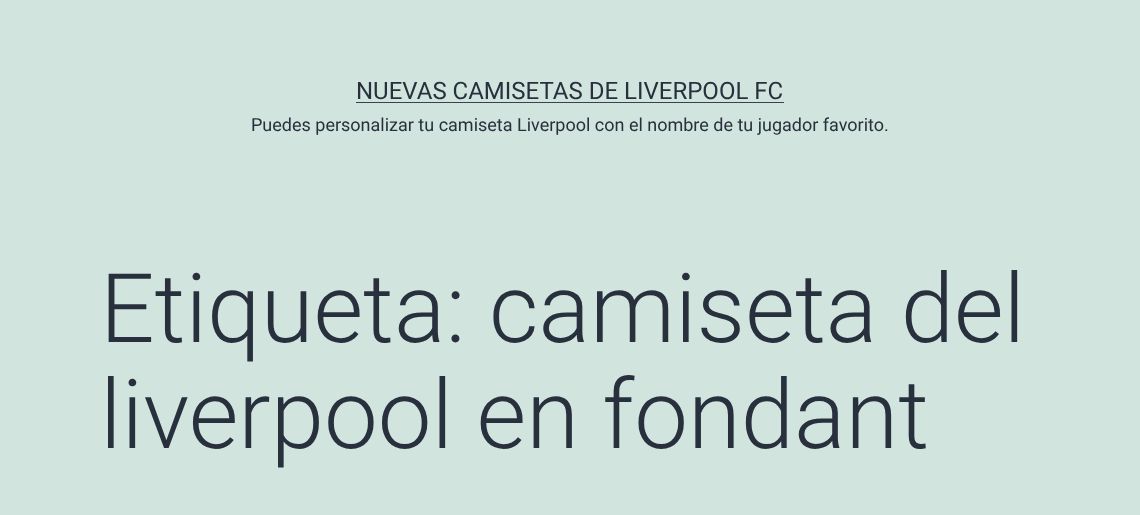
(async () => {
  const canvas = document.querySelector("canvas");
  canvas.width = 1140;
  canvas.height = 515;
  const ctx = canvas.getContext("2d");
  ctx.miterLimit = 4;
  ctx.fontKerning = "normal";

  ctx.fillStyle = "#d1e4dd";
  ctx.fillRect(0, 0, 1140, 515);
  ctx.fillStyle = "#39414d";
  ctx.fillRect(356, 102, 428, 1);
  ctx.font = "24px Roboto";
  ctx.fillStyle = "#28303d";
  ctx.fillText("NUEVAS CAMISETAS DE LIVERPOOL FC", 356, 99);
  ctx.font = "18px Roboto";
  ctx.fillText("Puedes personalizar tu camiseta Liverpool con el nombre de tu jugador favorito.", 251, 131);
  ctx.font = "300 96px Roboto";
  ctx.fillText("Etiqueta: camiseta del", 100, 342);
  ctx.fillText("liverpool en fondant", 100, 448);
})();
